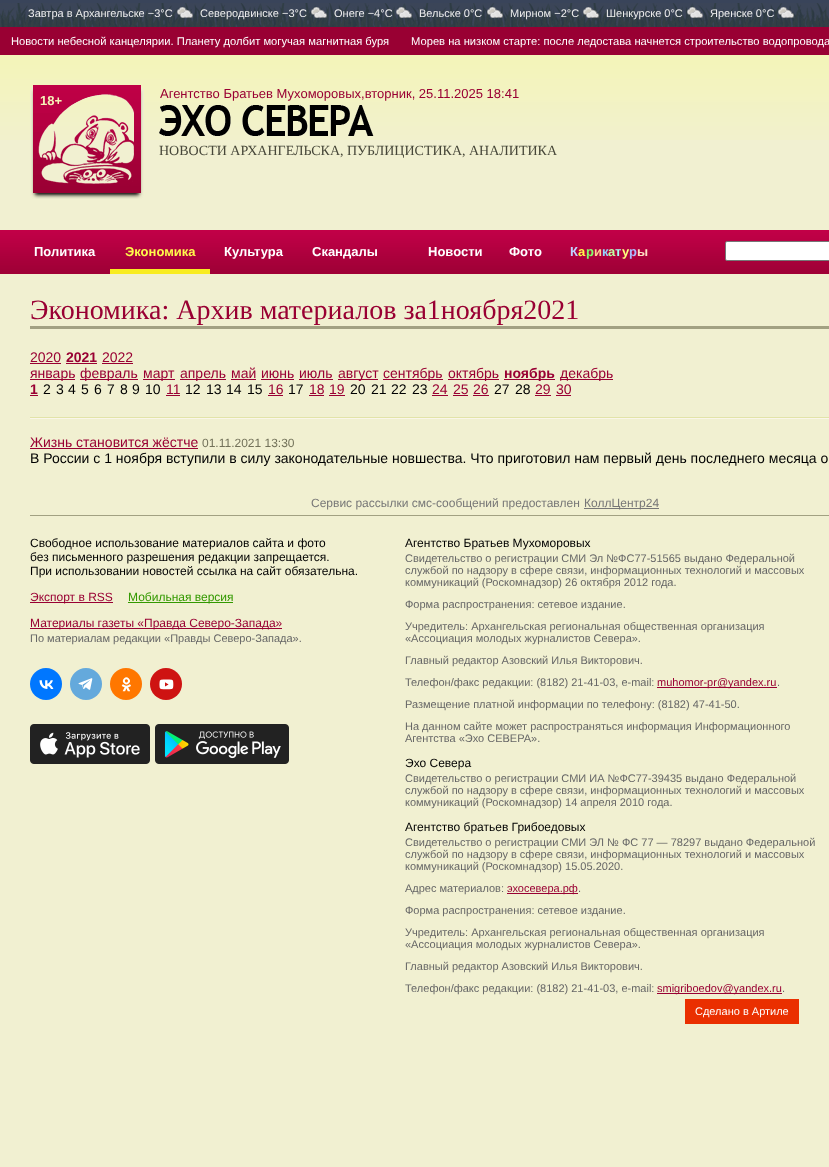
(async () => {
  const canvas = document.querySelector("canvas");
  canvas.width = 829;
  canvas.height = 1167;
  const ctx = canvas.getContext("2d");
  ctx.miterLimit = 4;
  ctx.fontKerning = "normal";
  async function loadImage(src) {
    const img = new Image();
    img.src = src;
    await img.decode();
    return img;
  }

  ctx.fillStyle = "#f1f0d1";
  ctx.fillRect(0, 0, 829, 1167);
  ctx.drawImage(await loadImage("img/1.png"), 0, 55, 829, 85);
  ctx.fillStyle = "#39445a";
  ctx.fillRect(0, 0, 829, 3);
  ctx.drawImage(await loadImage("img/2.png"), 0, 3, 829, 24);
  ctx.drawImage(await loadImage("img/3.png"), 177, 7, 16, 11);
  ctx.drawImage(await loadImage("img/4.png"), 311, 7, 16, 11);
  ctx.drawImage(await loadImage("img/5.png"), 396, 7, 16, 11);
  ctx.drawImage(await loadImage("img/6.png"), 487, 7, 16, 11);
  ctx.drawImage(await loadImage("img/7.png"), 583, 7, 16, 11);
  ctx.drawImage(await loadImage("img/8.png"), 687, 7, 16, 11);
  ctx.drawImage(await loadImage("img/9.png"), 778, 7, 16, 11);
  ctx.fillStyle = "#990033";
  ctx.fillRect(0, 27, 829, 28);
  ctx.drawImage(await loadImage("img/10.png"), 30, 87, 114, 112);
  ctx.drawImage(await loadImage("img/11.png"), 33, 85, 108, 108);
  ctx.drawImage(await loadImage("img/12.png"), 159, 105, 215, 31);
  ctx.drawImage(await loadImage("img/13.png"), 0, 230, 829, 44);
  ctx.fillStyle = "#f8ec20";
  ctx.fillRect(110, 269, 100, 5);
  ctx.fillStyle = "#ffffff";
  ctx.beginPath();
  ctx.roundRect(725.5, 241.5, 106, 19, 1.5);
  ctx.fill();
  ctx.strokeStyle = "#767676";
  ctx.stroke();
  for (const [x, y, w, h, color] of [
    [30, 326, 799, 3, "#a2a182"],
    [30, 363, 31, 1, "#990033"],
    [66, 363, 31, 1, "#990033"],
    [102, 363, 31, 1, "#990033"],
    [30, 379, 45, 1, "#990033"],
    [80, 379, 58, 1, "#990033"],
    [143, 379, 32, 1, "#990033"],
    [180, 379, 46, 1, "#990033"],
    [231, 379, 25, 1, "#990033"],
    [261, 379, 33, 1, "#990033"],
    [299, 379, 34, 1, "#990033"],
    [338, 379, 40, 1, "#990033"],
    [383, 379, 60, 1, "#990033"],
    [448, 379, 51, 1, "#990033"],
    [504, 379, 51, 1, "#990033"],
    [560, 379, 53, 1, "#990033"],
    [30, 395, 8, 1, "#990033"],
    [166, 395, 14, 1, "#990033"],
    [268, 395, 15, 1, "#990033"],
    [309, 395, 15, 1, "#990033"],
    [329, 395, 16, 1, "#990033"],
    [432, 395, 16, 1, "#990033"],
    [453, 395, 15, 1, "#990033"],
    [473, 395, 16, 1, "#990033"],
    [535, 395, 16, 1, "#990033"],
    [556, 395, 15, 1, "#990033"],
  ]) {
    ctx.fillStyle = color;
    ctx.fillRect(x, y, w, h);
  }
  ctx.drawImage(await loadImage("img/14.png"), 30, 417, 799, 2);
  for (const [x, y, w, h, color] of [
    [30, 448, 168, 1, "#990033"],
    [584, 508, 75, 1, "#777777"],
    [30, 515, 799, 1, "#a2a182"],
    [30, 602, 83, 1, "#990033"],
    [128, 602, 105, 1, "#339900"],
    [30, 628, 252, 1, "#990033"],
  ]) {
    ctx.fillStyle = color;
    ctx.fillRect(x, y, w, h);
  }
  ctx.fillStyle = "#0077ff";
  ctx.beginPath();
  ctx.arc(46, 684, 16, 0, Math.PI * 2);
  ctx.fill();
  ctx.drawImage(await loadImage("img/15.png"), 39, 680, 15, 9);
  ctx.fillStyle = "#64a9dc";
  ctx.beginPath();
  ctx.arc(86, 684, 16, 0, Math.PI * 2);
  ctx.fill();
  ctx.drawImage(await loadImage("img/16.png"), 78, 678, 15, 12);
  ctx.fillStyle = "#ff7700";
  ctx.beginPath();
  ctx.arc(126, 684, 16, 0, Math.PI * 2);
  ctx.fill();
  ctx.drawImage(await loadImage("img/17.png"), 121, 677, 10, 15);
  ctx.fillStyle = "#ce1312";
  ctx.beginPath();
  ctx.arc(166, 684, 16, 0, Math.PI * 2);
  ctx.fill();
  ctx.drawImage(await loadImage("img/18.png"), 159, 679, 15, 11);
  ctx.drawImage(await loadImage("img/19.png"), 30, 724, 120, 40);
  ctx.drawImage(await loadImage("img/20.png"), 155, 724, 134, 40);
  for (const [x, y, w, h, color] of [
    [657, 687, 120, 1, "#990033"],
    [507, 893, 71, 1, "#990033"],
    [657, 993, 125, 1, "#990033"],
    [685, 999, 114, 25, "#ea2f00"],
  ]) {
    ctx.fillStyle = color;
    ctx.fillRect(x, y, w, h);
  }
  ctx.font = "11px Liberation Sans";
  ctx.fillStyle = "#eeeeee";
  for (const [text, x, y] of [
    ["Завтра в Архангельске −3°C", 28, 17],
    ["Северодвинске −3°C", 200, 17],
    ["Онеге −4°C", 334, 17],
    ["Вельске 0°C", 419, 17],
    ["Мирном −2°C", 510, 17],
    ["Шенкурске 0°C", 606, 17],
    ["Яренске 0°C", 710, 17],
  ]) {
    ctx.fillText(text, x, y);
  }
  ctx.font = "11.2px Liberation Sans";
  ctx.fillStyle = "#ffffff";
  ctx.fillText("Новости небесной канцелярии. Планету долбит могучая магнитная буря", 11, 45);
  ctx.fillText("Морев на низком старте: после ледостава начнется строительство водопровода", 411, 45);
  ctx.font = "bold 13px Liberation Sans";
  ctx.fillStyle = "#f5f2b7";
  ctx.fillText("18+", 40, 105);
  ctx.font = "13px Liberation Sans";
  ctx.fillStyle = "#990033";
  ctx.fillText("Агентство Братьев Мухоморовых,вторник, 25.11.2025 18:41", 160, 98);
  ctx.font = "14px Liberation Serif";
  ctx.fillStyle = "#474739";
  ctx.fillText("НОВОСТИ АРХАНГЕЛЬСКА, ПУБЛИЦИСТИКА, АНАЛИТИКА", 159, 155);
  ctx.font = "bold 13px Liberation Sans";
  ctx.fillStyle = "#ffffff";
  ctx.fillText("Политика", 34, 256);
  ctx.fillStyle = "#fffa4b";
  ctx.fillText("Экономика", 125, 256);
  ctx.fillStyle = "#ffffff";
  for (const [text, x, y] of [
    ["Культура", 224, 256],
    ["Скандалы", 312, 256],
    ["Новости", 428, 256],
    ["Фото", 509, 256],
  ]) {
    ctx.fillText(text, x, y);
  }
  ctx.fillStyle = "#c0d2ff";
  ctx.fillText("К", 570, 256);
  ctx.fillStyle = "#fffa4b";
  ctx.fillText("а", 578, 256);
  ctx.fillStyle = "#81ff6c";
  ctx.fillText("р", 586, 256);
  ctx.fillStyle = "#ffd092";
  ctx.fillText("и", 594, 256);
  ctx.fillStyle = "#92d5ff";
  ctx.fillText("к", 602, 256);
  ctx.fillStyle = "#c0ffa1";
  ctx.fillText("а", 608, 256);
  ctx.fillStyle = "#a5fff6";
  ctx.fillText("т", 615, 256);
  ctx.fillStyle = "#feff7d";
  ctx.fillText("у", 622, 256);
  ctx.fillStyle = "#acb9fd";
  ctx.fillText("р", 629, 256);
  ctx.fillStyle = "#ffdfc4";
  ctx.fillText("ы", 637, 256);
  ctx.font = "28px Liberation Serif";
  ctx.fillStyle = "#990033";
  ctx.fillText("Экономика: Архив материалов за1ноября2021", 30, 319);
  ctx.font = "14px Liberation Sans";
  ctx.fillText("2020", 30, 362);
  ctx.font = "bold 14px Liberation Sans";
  ctx.fillText("2021", 66, 362);
  ctx.font = "14px Liberation Sans";
  for (const [text, x, y] of [
    ["2022", 102, 362],
    ["январь", 30, 378],
    ["февраль", 80, 378],
    ["март", 143, 378],
    ["апрель", 180, 378],
    ["май", 231, 378],
    ["июнь", 261, 378],
    ["июль", 299, 378],
    ["август", 338, 378],
    ["сентябрь", 383, 378],
    ["октябрь", 448, 378],
  ]) {
    ctx.fillText(text, x, y);
  }
  ctx.font = "bold 14px Liberation Sans";
  ctx.fillText("ноябрь", 504, 378);
  ctx.font = "14px Liberation Sans";
  ctx.fillText("декабрь", 560, 378);
  ctx.font = "bold 14px Liberation Sans";
  ctx.fillText("1", 30, 394);
  ctx.font = "14px Liberation Sans";
  ctx.fillStyle = "#000000";
  for (const [text, x, y] of [
    ["2", 43, 394],
    ["3", 56, 394],
    ["4", 68, 394],
    ["5", 81, 394],
    ["6", 94, 394],
    ["7", 107, 394],
    ["8", 120, 394],
    ["9", 132, 394],
    ["10", 145, 394],
  ]) {
    ctx.fillText(text, x, y);
  }
  ctx.fillStyle = "#990033";
  ctx.fillText("11", 166, 394);
  ctx.fillStyle = "#000000";
  for (const [text, x, y] of [
    ["12", 185, 394],
    ["13", 206, 394],
    ["14", 226, 394],
    ["15", 247, 394],
  ]) {
    ctx.fillText(text, x, y);
  }
  ctx.fillStyle = "#990033";
  ctx.fillText("16", 268, 394);
  ctx.fillStyle = "#000000";
  ctx.fillText("17", 288, 394);
  ctx.fillStyle = "#990033";
  ctx.fillText("18", 309, 394);
  ctx.fillText("19", 329, 394);
  ctx.fillStyle = "#000000";
  for (const [text, x, y] of [
    ["20", 350, 394],
    ["21", 371, 394],
    ["22", 391, 394],
    ["23", 412, 394],
  ]) {
    ctx.fillText(text, x, y);
  }
  ctx.fillStyle = "#990033";
  for (const [text, x, y] of [
    ["24", 432, 394],
    ["25", 453, 394],
    ["26", 473, 394],
  ]) {
    ctx.fillText(text, x, y);
  }
  ctx.fillStyle = "#000000";
  ctx.fillText("27", 494, 394);
  ctx.fillText("28", 515, 394);
  ctx.fillStyle = "#990033";
  for (const [text, x, y] of [
    ["29", 535, 394],
    ["30", 556, 394],
    ["Жизнь становится жёстче", 30, 447],
  ]) {
    ctx.fillText(text, x, y);
  }
  ctx.font = "12px Liberation Sans";
  ctx.fillStyle = "#727159";
  ctx.fillText("01.11.2021 13:30", 202, 447);
  ctx.font = "14px Liberation Sans";
  ctx.fillStyle = "#000000";
  ctx.fillText("В России с 1 ноября вступили в силу законодательные новшества. Что приготовил нам первый день последнего месяца о", 30, 463);
  ctx.font = "12px Liberation Sans";
  ctx.fillStyle = "#777777";
  ctx.fillText("Сервис рассылки смс-сообщений предоставлен", 311, 507);
  ctx.fillText("КоллЦентр24", 584, 507);
  ctx.fillStyle = "#000000";
  for (const [text, x, y] of [
    ["Свободное использование материалов сайта и фото", 30, 547],
    ["без письменного разрешения редакции запрещается.", 30, 561],
    ["При использовании новостей ссылка на сайт обязательна.", 30, 575],
  ]) {
    ctx.fillText(text, x, y);
  }
  ctx.fillStyle = "#990033";
  ctx.fillText("Экспорт в RSS", 30, 601);
  ctx.fillStyle = "#339900";
  ctx.fillText("Мобильная версия", 128, 601);
  ctx.fillStyle = "#990033";
  ctx.fillText("Материалы газеты «Правда Северо-Запада»", 30, 627);
  ctx.font = "11px Liberation Sans";
  ctx.fillStyle = "#666666";
  ctx.fillText("По материалам редакции «Правды Северо-Запада».", 30, 642);
  ctx.font = "12px Liberation Sans";
  ctx.fillStyle = "#000000";
  ctx.fillText("Агентство Братьев Мухоморовых", 405, 547);
  ctx.font = "11px Liberation Sans";
  ctx.fillStyle = "#666666";
  for (const [text, x, y] of [
    ["Свидетельство о регистрации СМИ Эл №ФС77-51565 выдано Федеральной", 405, 562],
    ["службой по надзору в сфере связи, информационных технологий и массовых", 405, 574],
    ["коммуникаций (Роскомнадзор) 26 октября 2012 года.", 405, 586],
    ["Форма распространения: сетевое издание.", 405, 608],
    ["Учредитель: Архангельская региональная общественная организация", 405, 630],
    ["«Ассоциация молодых журналистов Севера».", 405, 642],
    ["Главный редактор Азовский Илья Викторович.", 405, 664],
    ["Телефон/факс редакции: (8182) 21-41-03, e-mail:", 405, 686],
  ]) {
    ctx.fillText(text, x, y);
  }
  ctx.fillStyle = "#990033";
  ctx.fillText("muhomor-pr@yandex.ru", 657, 686);
  ctx.fillStyle = "#666666";
  for (const [text, x, y] of [
    [".", 777, 686],
    ["Размещение платной информации по телефону: (8182) 47-41-50.", 405, 708],
    ["На данном сайте может распространяться информация Информационного", 405, 730],
    ["Агентства «Эхо СЕВЕРА».", 405, 742],
  ]) {
    ctx.fillText(text, x, y);
  }
  ctx.font = "12px Liberation Sans";
  ctx.fillStyle = "#000000";
  ctx.fillText("Эхо Севера", 405, 767);
  ctx.font = "11px Liberation Sans";
  ctx.fillStyle = "#666666";
  for (const [text, x, y] of [
    ["Свидетельство о регистрации СМИ ИА №ФС77-39435 выдано Федеральной", 405, 782],
    ["службой по надзору в сфере связи, информационных технологий и массовых", 405, 794],
    ["коммуникаций (Роскомнадзор) 14 апреля 2010 года.", 405, 806],
  ]) {
    ctx.fillText(text, x, y);
  }
  ctx.font = "12px Liberation Sans";
  ctx.fillStyle = "#000000";
  ctx.fillText("Агентство братьев Грибоедовых", 405, 831);
  ctx.font = "11px Liberation Sans";
  ctx.fillStyle = "#666666";
  for (const [text, x, y] of [
    ["Свидетельство о регистрации СМИ ЭЛ № ФС 77 — 78297 выдано Федеральной", 405, 846],
    ["службой по надзору в сфере связи, информационных технологий и массовых", 405, 858],
    ["коммуникаций (Роскомнадзор) 15.05.2020.", 405, 870],
    ["Адрес материалов:", 405, 892],
  ]) {
    ctx.fillText(text, x, y);
  }
  ctx.fillStyle = "#990033";
  ctx.fillText("эхосевера.рф", 507, 892);
  ctx.fillStyle = "#666666";
  for (const [text, x, y] of [
    [".", 578, 892],
    ["Форма распространения: сетевое издание.", 405, 914],
    ["Учредитель: Архангельская региональная общественная организация", 405, 936],
    ["«Ассоциация молодых журналистов Севера».", 405, 948],
    ["Главный редактор Азовский Илья Викторович.", 405, 970],
    ["Телефон/факс редакции: (8182) 21-41-03, e-mail:", 405, 992],
  ]) {
    ctx.fillText(text, x, y);
  }
  ctx.fillStyle = "#990033";
  ctx.fillText("smigriboedov@yandex.ru", 657, 992);
  ctx.fillStyle = "#666666";
  ctx.fillText(".", 782, 992);
  ctx.fillStyle = "#ffffff";
  ctx.fillText("Сделано в Артиле", 695, 1015);
})();
